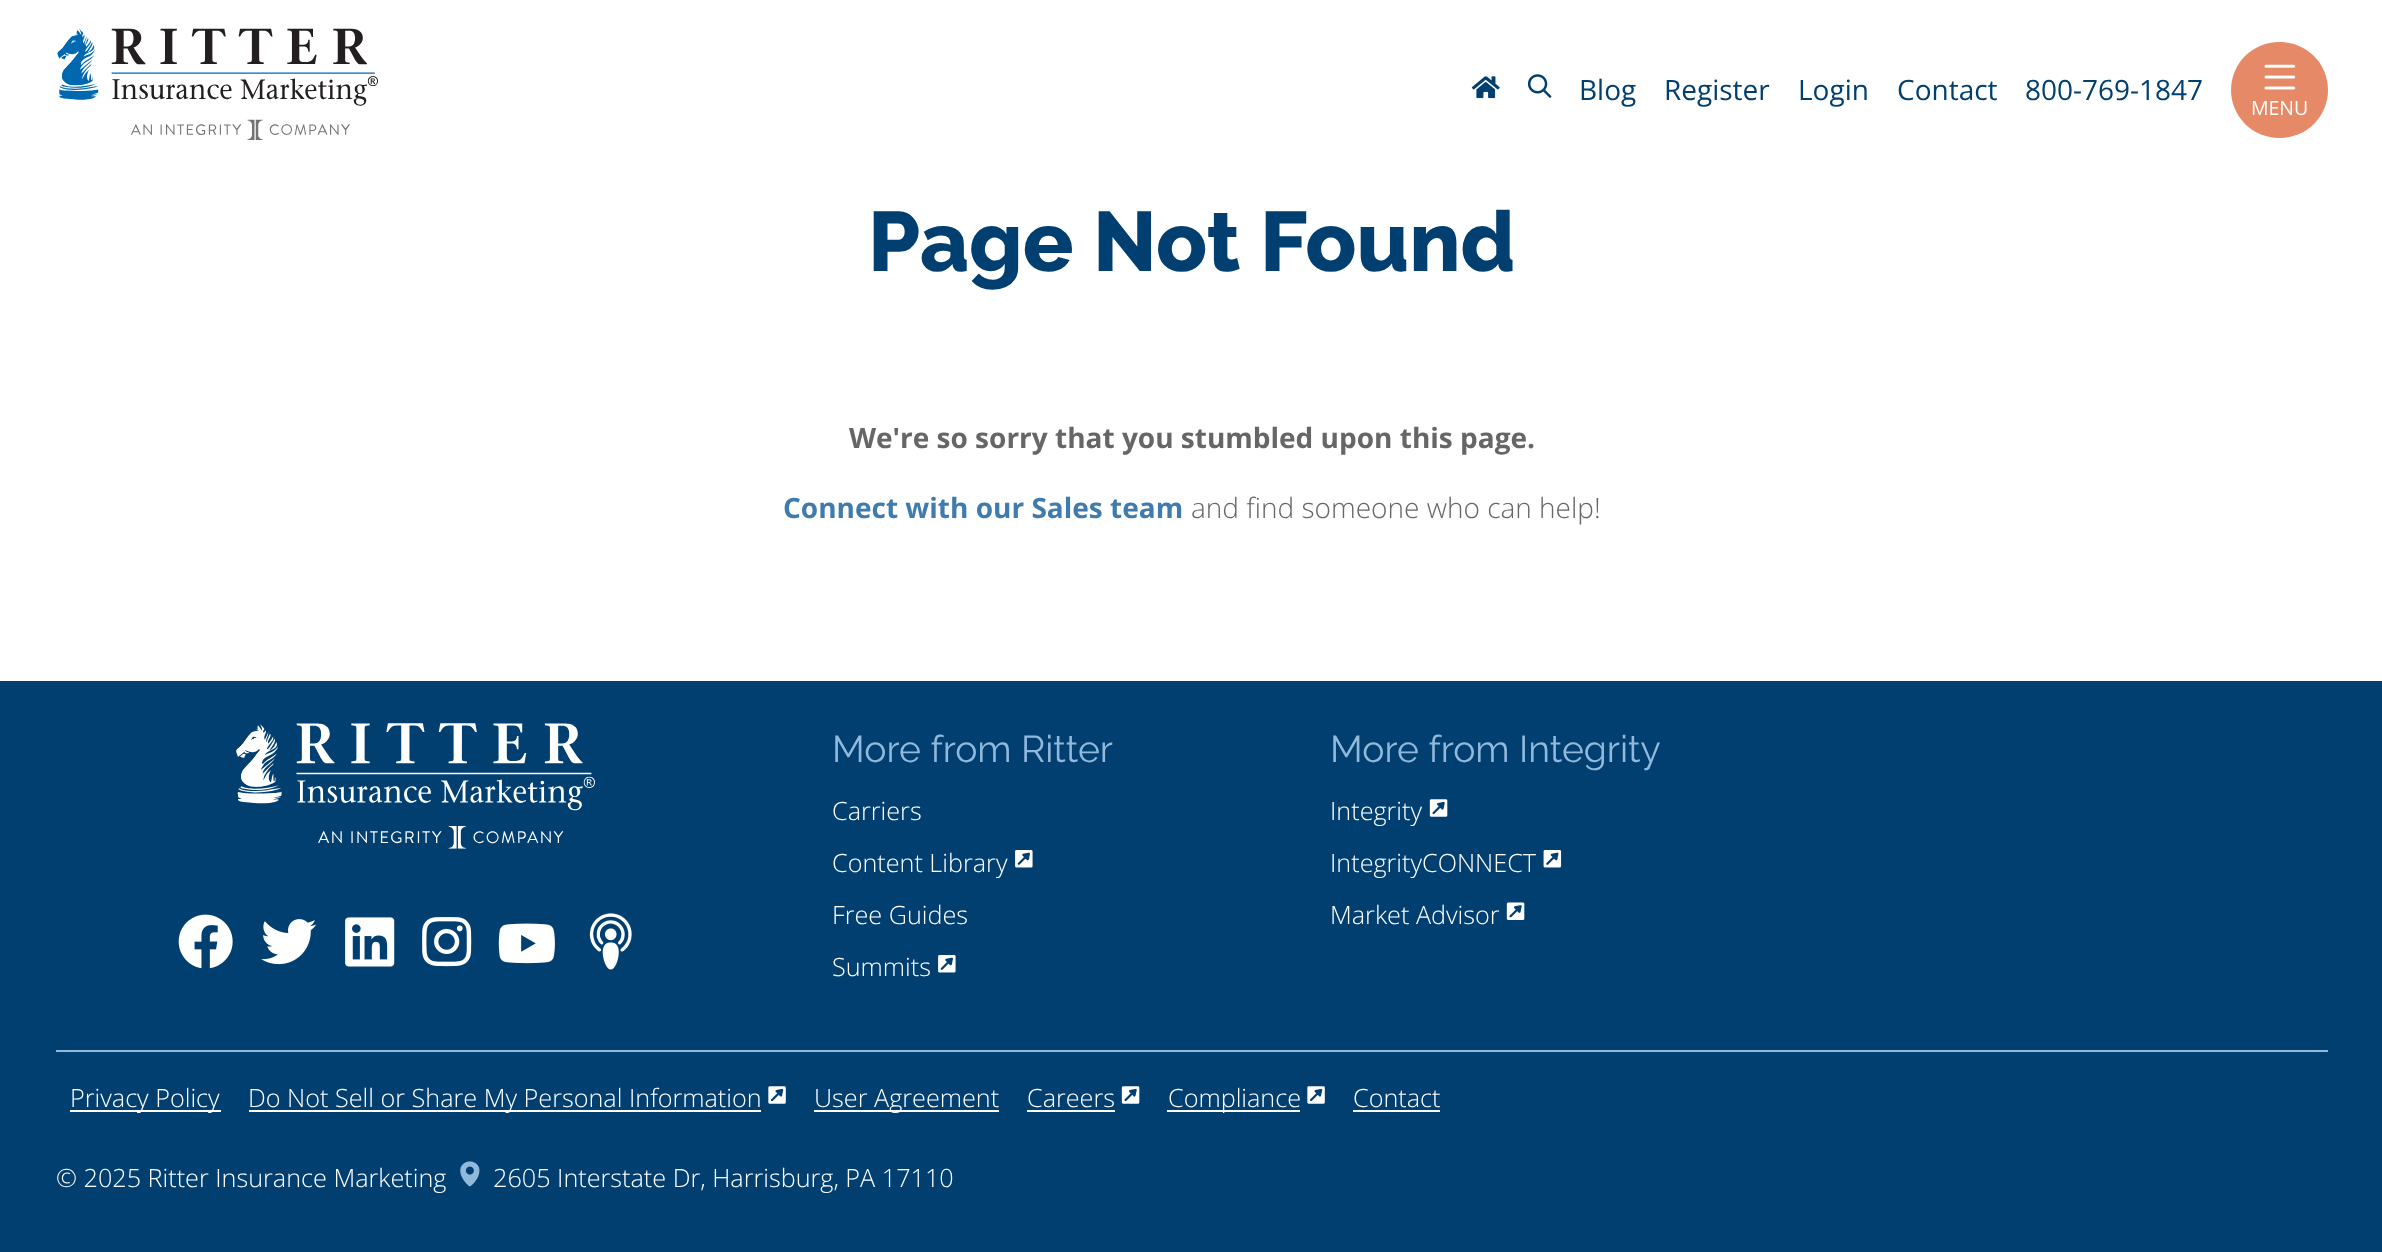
(async () => {
  const canvas = document.querySelector("canvas");
  canvas.width = 2382;
  canvas.height = 1252;
  const ctx = canvas.getContext("2d");
  ctx.miterLimit = 4;
  ctx.fontKerning = "normal";
  async function loadImage(src) {
    const img = new Image();
    img.src = src;
    await img.decode();
    return img;
  }

  ctx.fillStyle = "#ffffff";
  ctx.fillRect(0, 0, 2382, 1252);
  ctx.drawImage(await loadImage("img/1.png"), 57, 28, 321, 112);
  ctx.drawImage(await loadImage("img/2.png"), 1471, 76, 29, 23);
  ctx.drawImage(await loadImage("img/3.png"), 1527, 74, 25, 24);
  ctx.fillStyle = "#e58967";
  ctx.beginPath();
  ctx.roundRect(2231, 42, 97, 96, 48);
  ctx.fill();
  ctx.drawImage(await loadImage("img/4.png"), 2264, 64, 32, 26);
  ctx.fillStyle = "#003f70";
  ctx.fillRect(0, 681, 2382, 571);
  ctx.drawImage(await loadImage("img/5.png"), 236, 723, 359, 126);
  ctx.drawImage(await loadImage("img/6.png"), 178, 914, 55, 55);
  ctx.drawImage(await loadImage("img/7.png"), 261, 919, 56, 46);
  ctx.drawImage(await loadImage("img/8.png"), 345, 917, 50, 50);
  ctx.drawImage(await loadImage("img/9.png"), 422, 917, 50, 50);
  ctx.drawImage(await loadImage("img/10.png"), 498, 923, 57, 41);
  ctx.drawImage(await loadImage("img/11.png"), 589, 913, 43, 57);
  ctx.drawImage(await loadImage("img/12.png"), 1015, 850, 18, 18);
  ctx.drawImage(await loadImage("img/12.png"), 938, 955, 18, 18);
  ctx.drawImage(await loadImage("img/13.png"), 1429, 799, 19, 18);
  ctx.drawImage(await loadImage("img/14.png"), 1543, 850, 19, 18);
  ctx.drawImage(await loadImage("img/15.png"), 1506, 902, 19, 18);
  for (const [x, y, w, h, color] of [
    [56, 1050, 2272, 2, "#91b9dc"],
    [70, 1110, 151, 2, "#ffffff"],
    [249, 1110, 512, 2, "#ffffff"],
  ]) {
    ctx.fillStyle = color;
    ctx.fillRect(x, y, w, h);
  }
  ctx.drawImage(await loadImage("img/16.png"), 768, 1086, 18, 18);
  ctx.fillRect(814, 1110, 185, 2);
  ctx.fillRect(1027, 1110, 88, 2);
  ctx.drawImage(await loadImage("img/13.png"), 1121, 1086, 19, 18);
  ctx.fillRect(1167, 1110, 133, 2);
  ctx.drawImage(await loadImage("img/16.png"), 1307, 1086, 18, 18);
  ctx.fillRect(1353, 1110, 87, 2);
  ctx.drawImage(await loadImage("img/17.png"), 460, 1161, 20, 26);
  ctx.font = "28px Open Sans";
  ctx.fillStyle = "#003f70";
  for (const [text, x, y] of [
    ["Blog", 1579, 100],
    ["Register", 1664, 100],
    ["Login", 1798, 100],
    ["Contact", 1897, 100],
    ["800-769-1847", 2025, 100],
  ]) {
    ctx.fillText(text, x, y);
  }
  ctx.font = "19.5px Open Sans";
  ctx.fillStyle = "#ffffff";
  ctx.fillText("MENU", 2251, 115);
  ctx.font = "800 84px Raleway";
  ctx.fillStyle = "#003f70";
  ctx.fillText("Page Not Found", 868, 271);
  ctx.font = "bold 28px Open Sans";
  ctx.fillStyle = "#666666";
  ctx.fillText("We're so sorry that you stumbled upon this page.", 849, 448);
  ctx.fillStyle = "#3f7bad";
  ctx.fillText("Connect with our Sales team", 783, 518);
  ctx.font = "300 28px Open Sans";
  ctx.fillStyle = "#666666";
  ctx.fillText("and find someone who can help!", 1191, 518);
  ctx.font = "37.25px Raleway";
  ctx.fillStyle = "#91b9dc";
  ctx.fillText("More from Ritter", 832, 762);
  ctx.font = "300 25.2px Open Sans";
  ctx.fillStyle = "#ffffff";
  for (const [text, x, y] of [
    ["Carriers", 832, 820],
    ["Content Library", 832, 872],
    ["Free Guides", 832, 924],
    ["Summits", 832, 976],
  ]) {
    ctx.fillText(text, x, y);
  }
  ctx.font = "37.25px Raleway";
  ctx.fillStyle = "#91b9dc";
  ctx.fillText("More from Integrity", 1330, 762);
  ctx.font = "300 25.2px Open Sans";
  ctx.fillStyle = "#ffffff";
  for (const [text, x, y] of [
    ["Integrity", 1330, 820],
    ["IntegrityCONNECT", 1330, 872],
    ["Market Advisor", 1330, 924],
    ["Privacy Policy", 70, 1107],
    ["Do Not Sell or Share My Personal Information", 248, 1107],
    ["User Agreement", 814, 1107],
    ["Careers", 1027, 1107],
    ["Compliance", 1168, 1107],
    ["Contact", 1353, 1107],
    ["© 2025 Ritter Insurance Marketing", 56, 1187],
    ["2605 Interstate Dr, Harrisburg, PA 17110", 493, 1187],
  ]) {
    ctx.fillText(text, x, y);
  }
})();
